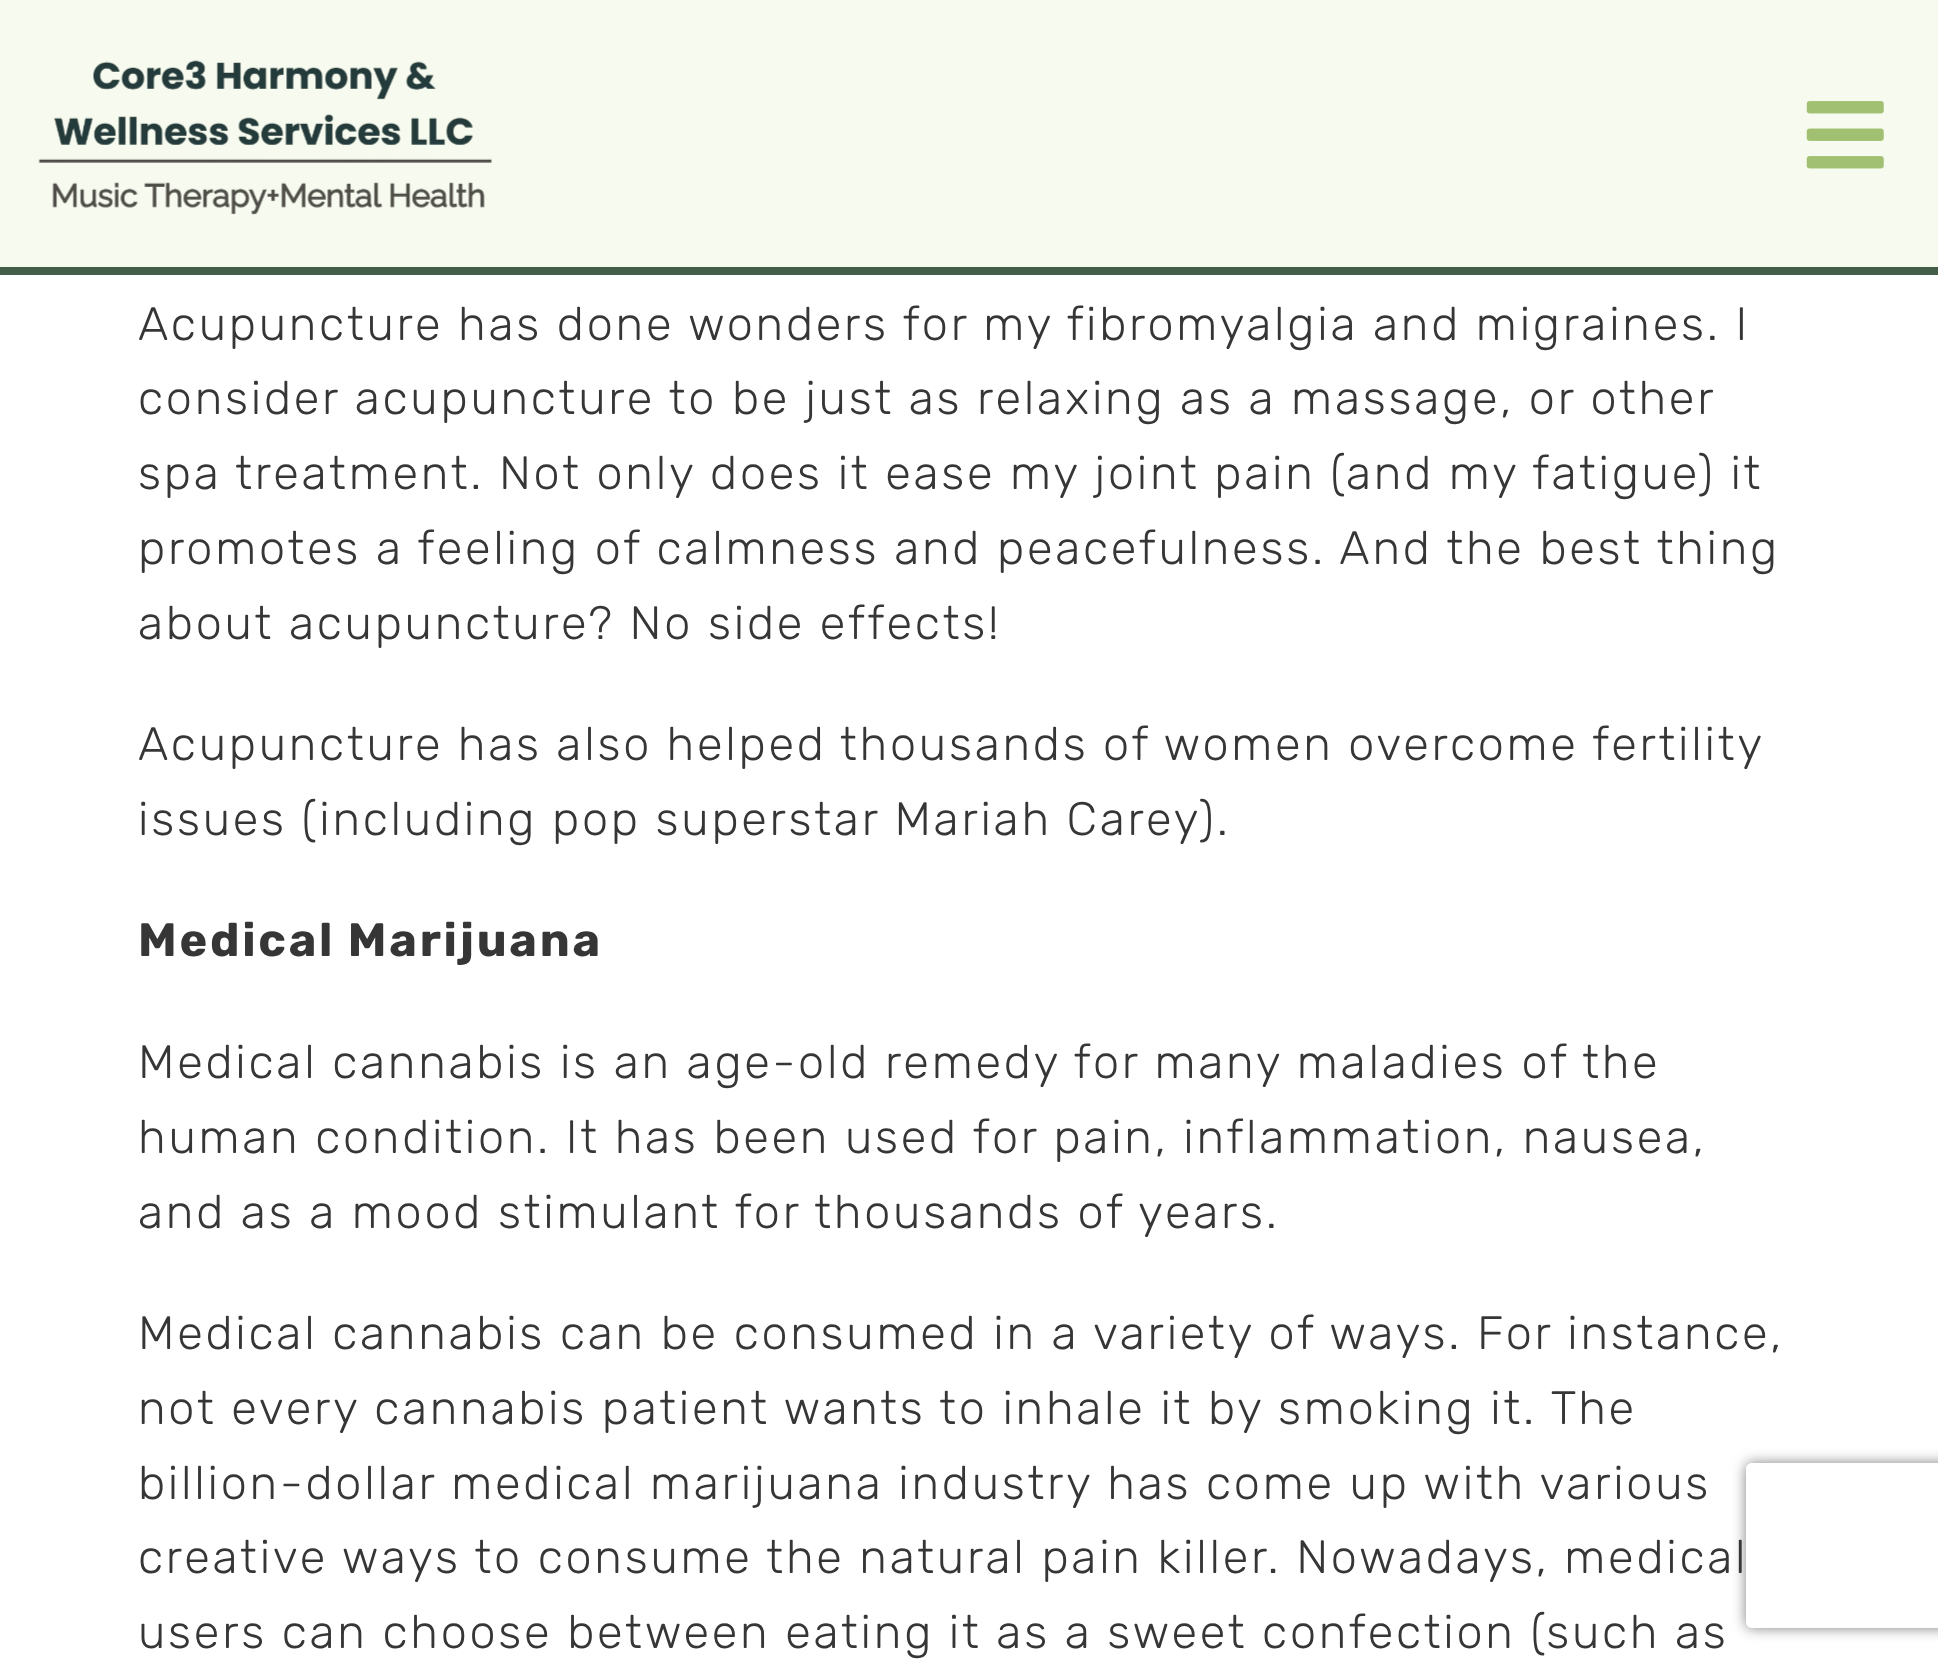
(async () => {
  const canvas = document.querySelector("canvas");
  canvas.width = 1938;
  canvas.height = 1666;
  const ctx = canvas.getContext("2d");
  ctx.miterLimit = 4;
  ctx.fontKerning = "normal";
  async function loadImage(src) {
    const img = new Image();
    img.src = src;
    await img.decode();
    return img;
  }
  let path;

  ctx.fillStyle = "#ffffff";
  ctx.fillRect(0, 0, 1938, 1666);
  ctx.fillStyle = "#f7fbef";
  ctx.fillRect(0, 0, 1938, 267);
  ctx.fillStyle = "#425d48";
  ctx.fillRect(0, 267, 1938, 8);
  ctx.drawImage(await loadImage("img/1.png"), 38, 60, 454, 155);
  ctx.drawImage(await loadImage("img/2.png"), 1806, 101, 78, 68);
  ctx.save();
  path = new Path2D("M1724 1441H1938V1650H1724ZM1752 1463H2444C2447.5 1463 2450 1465.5 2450 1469V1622C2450 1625.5 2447.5 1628 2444 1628H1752C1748.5 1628 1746 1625.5 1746 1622V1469C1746 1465.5 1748.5 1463 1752 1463Z");
  ctx.clip(path, "evenodd");
  ctx.fillStyle = "#808080";
  ctx.filter = "blur(7px)";
  ctx.beginPath();
  ctx.roundRect(1746, 1463, 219, 165, 6);
  ctx.fill();
  ctx.filter = "none";
  ctx.restore();
  ctx.letterSpacing = "2.75px";
  ctx.font = "300 46.75px Rubik";
  ctx.fillStyle = "#363636";
  for (const [text, x, y] of [
    ["Acupuncture has done wonders for my fibromyalgia and migraines. I", 138, 340],
    ["consider acupuncture to be just as relaxing as a massage, or other", 138, 414],
    ["spa treatment. Not only does it ease my joint pain (and my fatigue) it", 138, 489],
    ["promotes a feeling of calmness and peacefulness. And the best thing", 138, 564],
    ["about acupuncture? No side effects!", 138, 639],
  ]) {
    ctx.fillText(text, x, y);
  }
  ctx.wordSpacing = "-0.25px";
  ctx.fillText("Acupuncture has also helped thousands of women overcome fertility", 138, 760);
  ctx.wordSpacing = "0px";
  ctx.fillText("issues (including pop superstar Mariah Carey).", 138, 835);
  ctx.font = "bold 46.75px Rubik";
  ctx.fillText("Medical Marijuana", 138, 956);
  ctx.font = "300 46.75px Rubik";
  for (const [text, x, y] of [
    ["Medical cannabis is an age-old remedy for many maladies of the", 138, 1078],
    ["human condition. It has been used for pain, inflammation, nausea,", 138, 1153],
    ["and as a mood stimulant for thousands of years.", 138, 1228],
    ["Medical cannabis can be consumed in a variety of ways. For instance,", 138, 1349],
    ["not every cannabis patient wants to inhale it by smoking it. The", 138, 1424],
    ["billion-dollar medical marijuana industry has come up with various", 138, 1499],
    ["creative ways to consume the natural pain killer. Nowadays, medical", 138, 1573],
    ["users can choose between eating it as a sweet confection (such as", 138, 1648],
  ]) {
    ctx.fillText(text, x, y);
  }
})();
